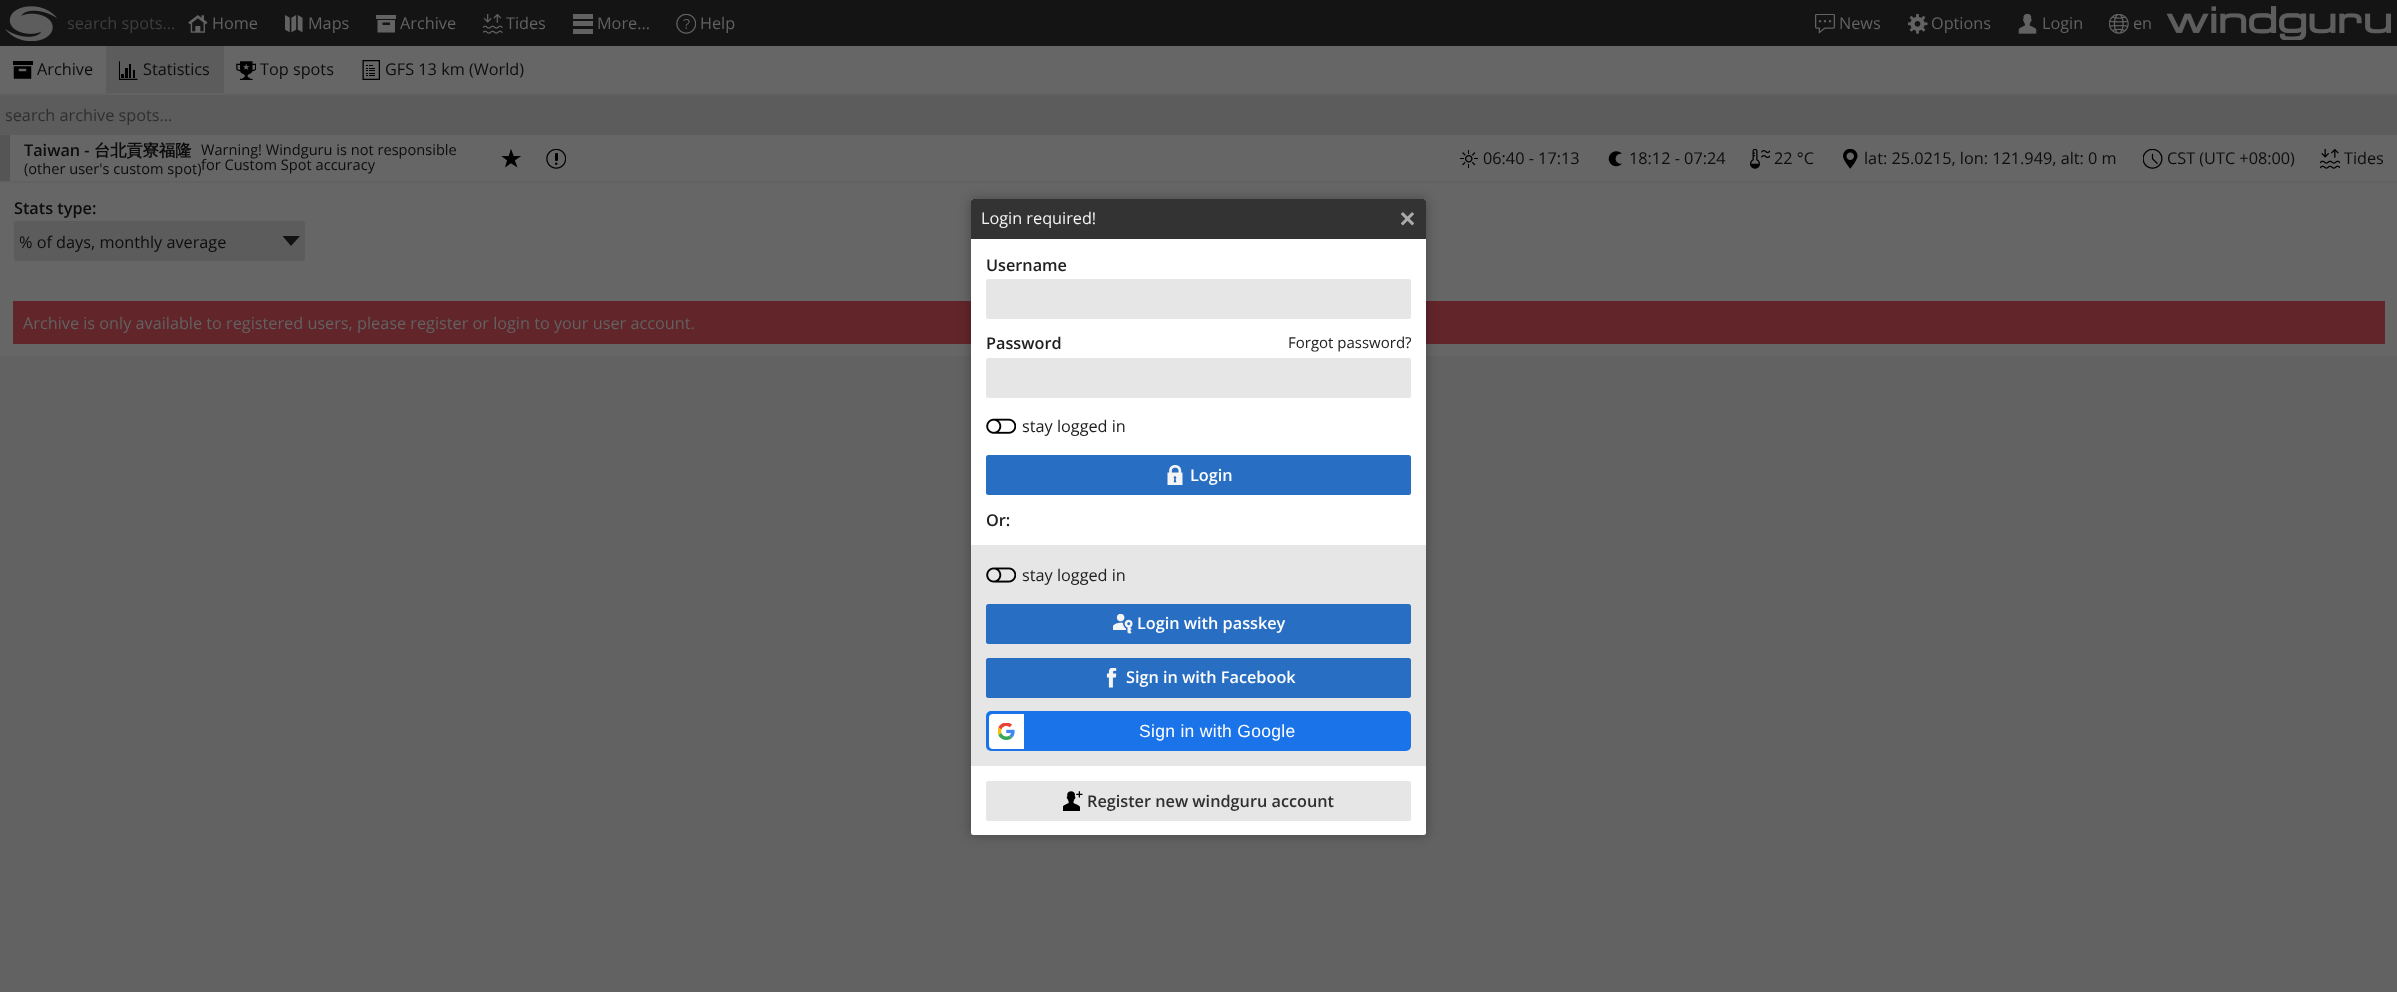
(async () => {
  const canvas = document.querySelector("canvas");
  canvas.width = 2397;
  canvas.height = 992;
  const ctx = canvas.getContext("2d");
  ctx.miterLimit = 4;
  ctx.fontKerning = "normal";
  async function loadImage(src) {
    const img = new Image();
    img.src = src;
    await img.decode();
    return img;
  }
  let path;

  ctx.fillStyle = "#626262";
  ctx.fillRect(0, 0, 2397, 992);
  ctx.fillStyle = "#141414";
  ctx.fillRect(0, 0, 2397, 46);
  ctx.drawImage(await loadImage("img/1.png"), 5, 6, 53, 35);
  ctx.drawImage(await loadImage("img/2.png"), 188, 15, 20, 18);
  ctx.drawImage(await loadImage("img/3.png"), 285, 15, 18, 18);
  ctx.drawImage(await loadImage("img/4.png"), 376, 15, 20, 18);
  ctx.drawImage(await loadImage("img/5.png"), 483, 14, 20, 20);
  for (const [x, y, w, h, color] of [
    [573, 14, 20, 5, "#626262"],
    [573, 21, 20, 5, "#626262"],
    [573, 29, 20, 5, "#626262"],
  ]) {
    ctx.fillStyle = color;
    ctx.fillRect(x, y, w, h);
  }
  ctx.drawImage(await loadImage("img/6.png"), 676, 14, 20, 20);
  ctx.drawImage(await loadImage("img/7.png"), 1815, 14, 20, 20);
  ctx.drawImage(await loadImage("img/8.png"), 1908, 14, 20, 20);
  ctx.drawImage(await loadImage("img/9.png"), 2018, 14, 19, 20);
  ctx.drawImage(await loadImage("img/10.png"), 2109, 14, 20, 20);
  ctx.drawImage(await loadImage("img/11.png"), 2166, 6, 225, 34);
  ctx.fillStyle = "#666666";
  ctx.fillRect(0, 46, 2397, 47);
  ctx.drawImage(await loadImage("img/12.png"), 13, 61, 20, 18);
  ctx.fillStyle = "#5c5c5c";
  ctx.fillRect(106, 46, 118, 47);
  ctx.drawImage(await loadImage("img/13.png"), 119, 61, 19, 19);
  ctx.drawImage(await loadImage("img/14.png"), 236, 61, 20, 19);
  ctx.drawImage(await loadImage("img/15.png"), 362, 60, 18, 20);
  ctx.beginPath();
  ctx.roundRect(0, 95, 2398, 40, 2.5);
  ctx.fill();
  ctx.fillStyle = "#666666";
  ctx.fillRect(10, 135, 2387, 46);
  ctx.fillStyle = "#555555";
  ctx.fillRect(0, 135, 10, 46);
  ctx.drawImage(await loadImage("img/16.png"), 501, 149, 20, 19);
  ctx.drawImage(await loadImage("img/17.png"), 546, 149, 20, 20);
  ctx.drawImage(await loadImage("img/18.png"), 1460, 150, 18, 18);
  ctx.drawImage(await loadImage("img/19.png"), 1608, 151, 14, 16);
  ctx.drawImage(await loadImage("img/20.png"), 1750, 149, 20, 20);
  ctx.drawImage(await loadImage("img/21.png"), 1843, 149, 15, 20);
  ctx.drawImage(await loadImage("img/22.png"), 2143, 149, 20, 20);
  ctx.drawImage(await loadImage("img/23.png"), 2320, 149, 20, 20);
  ctx.fillStyle = "#666666";
  ctx.fillRect(0, 183, 2397, 173);
  ctx.fillStyle = "#5c5c5c";
  ctx.beginPath();
  ctx.roundRect(14, 221, 291, 40, 2.5);
  ctx.fill();
  ctx.fillStyle = "#121212";
  path = new Path2D("M300 236H282.5L291 246Z");
  ctx.fill(path);
  ctx.fillStyle = "#62252a";
  ctx.fillRect(13, 301, 2372, 43);
  ctx.fillStyle = "rgba(0, 0, 0, 0.3)";
  ctx.filter = "blur(6px)";
  ctx.beginPath();
  ctx.roundRect(971, 199, 455, 636, 2.5);
  ctx.fill();
  ctx.filter = "none";
  ctx.fillStyle = "#ffffff";
  ctx.beginPath();
  ctx.roundRect(971, 199, 455, 636, 2.5);
  ctx.fill();
  ctx.fillStyle = "#333333";
  ctx.beginPath();
  ctx.roundRect(971, 199, 455, 40, [2.5, 2.5, 0, 0]);
  ctx.fill();
  ctx.drawImage(await loadImage("img/24.png"), 1401, 212, 13, 14);
  ctx.fillStyle = "#e6e6e6";
  ctx.beginPath();
  ctx.roundRect(986, 279, 425, 40, 2.5);
  ctx.fill();
  ctx.beginPath();
  ctx.roundRect(986, 358, 425, 40, 2.5);
  ctx.fill();
  ctx.drawImage(await loadImage("img/25.png"), 986, 418, 30, 16);
  ctx.fillStyle = "#286ec3";
  ctx.beginPath();
  ctx.roundRect(986, 455, 425, 40, 2.5);
  ctx.fill();
  ctx.drawImage(await loadImage("img/26.png"), 1167, 465, 16, 20);
  ctx.fillStyle = "#e6e6e6";
  ctx.fillRect(971, 545, 455, 221);
  ctx.drawImage(await loadImage("img/27.png"), 986, 567, 30, 16);
  ctx.fillStyle = "#286ec3";
  ctx.beginPath();
  ctx.roundRect(986, 604, 425, 40, 2.5);
  ctx.fill();
  ctx.drawImage(await loadImage("img/28.png"), 1113, 614, 20, 20);
  ctx.beginPath();
  ctx.roundRect(986, 658, 425, 40, 2.5);
  ctx.fill();
  ctx.drawImage(await loadImage("img/29.png"), 1106, 668, 11, 20);
  ctx.fillStyle = "#1a73e8";
  ctx.beginPath();
  ctx.roundRect(986, 711, 425, 40, 5);
  ctx.fill();
  ctx.fillStyle = "#ffffff";
  ctx.beginPath();
  ctx.roundRect(989, 714, 35, 35, [4, 0, 0, 4]);
  ctx.fill();
  ctx.drawImage(await loadImage("img/30.png"), 998, 723, 17, 17);
  ctx.fillStyle = "#e6e6e6";
  ctx.beginPath();
  ctx.roundRect(986, 781, 425, 40, 2.5);
  ctx.fill();
  ctx.drawImage(await loadImage("img/31.png"), 1063, 791, 20, 20);
  ctx.font = "16.25px Open Sans";
  ctx.fillStyle = "#3e3e3e";
  ctx.fillText("search spots...", 67, 29);
  ctx.fillStyle = "#626262";
  for (const [text, x, y] of [
    ["Home", 212, 29],
    ["Maps", 308, 29],
    ["Archive", 400, 29],
    ["Tides", 506, 29],
    ["More...", 597, 29],
    ["Help", 700, 29],
    ["News", 1839, 29],
    ["Options", 1931, 29],
    ["Login", 2042, 29],
    ["en", 2133, 29],
  ]) {
    ctx.fillText(text, x, y);
  }
  ctx.fillStyle = "#0d0d0d";
  for (const [text, x, y] of [
    ["Archive", 37, 75],
    ["Statistics", 143, 75],
    ["Top spots", 260, 75],
    ["GFS 13 km (World)", 385, 75],
  ]) {
    ctx.fillText(text, x, y);
  }
  ctx.fillStyle = "#2f2f2f";
  ctx.fillText("search archive spots...", 5, 121);
  ctx.font = "600 16.25px Open Sans";
  ctx.fillStyle = "#0d0d0d";
  ctx.fillText("Taiwan -", 24, 156);
  ctx.font = "bold 16.25px WenQuanYi Zen Hei";
  ctx.fillText("台北貢寮福隆", 94, 156);
  ctx.font = "14.6px Open Sans";
  for (const [text, x, y] of [
    ["(other user's custom spot)", 24, 174],
    ["Warning! Windguru is not responsible", 201, 155],
    ["for Custom Spot accuracy", 201, 170],
  ]) {
    ctx.fillText(text, x, y);
  }
  ctx.font = "16.25px Open Sans";
  for (const [text, x, y] of [
    ["06:40 - 17:13", 1483, 164],
    ["18:12 - 07:24", 1629, 164],
    ["22 °C", 1774, 164],
    ["lat: 25.0215, lon: 121.949, alt: 0 m", 1864, 164],
    ["CST (UTC +08:00)", 2167, 164],
    ["Tides", 2344, 164],
  ]) {
    ctx.fillText(text, x, y);
  }
  ctx.font = "600 16.25px Open Sans";
  ctx.fillText("Stats type:", 14, 214);
  ctx.font = "16.25px Open Sans";
  ctx.fillText("% of days, monthly average", 19, 248);
  ctx.fillStyle = "#626262";
  ctx.fillText("Archive is only available to registered users, please register or login to your user account.", 23, 329);
  ctx.fillStyle = "#f4f4f4";
  ctx.fillText("Login required!", 981, 224);
  ctx.font = "600 16.25px Open Sans";
  ctx.fillStyle = "#202020";
  ctx.fillText("Username", 986, 271);
  ctx.fillText("Password", 986, 349);
  ctx.font = "15px Open Sans";
  ctx.fillText("Forgot password?", 1288, 348);
  ctx.font = "16.25px Open Sans";
  ctx.fillText("stay logged in", 1022, 432);
  ctx.font = "600 16.25px Open Sans";
  ctx.fillStyle = "#ffffff";
  ctx.fillText("Login", 1190, 481);
  ctx.fillStyle = "#202020";
  ctx.fillText("Or:", 986, 526);
  ctx.font = "16.25px Open Sans";
  ctx.fillText("stay logged in", 1022, 581);
  ctx.font = "600 16.25px Open Sans";
  ctx.fillStyle = "#ffffff";
  ctx.fillText("Login with passkey", 1137, 629);
  ctx.fillText("Sign in with Facebook", 1126, 683);
  ctx.letterSpacing = "0.3px";
  ctx.font = "17.5px Liberation Sans";
  ctx.fillText("Sign in with Google", 1139, 737);
  ctx.letterSpacing = "0px";
  ctx.font = "600 16.25px Open Sans";
  ctx.fillStyle = "#2f2f2f";
  ctx.fillText("Register new windguru account", 1087, 807);
})();
